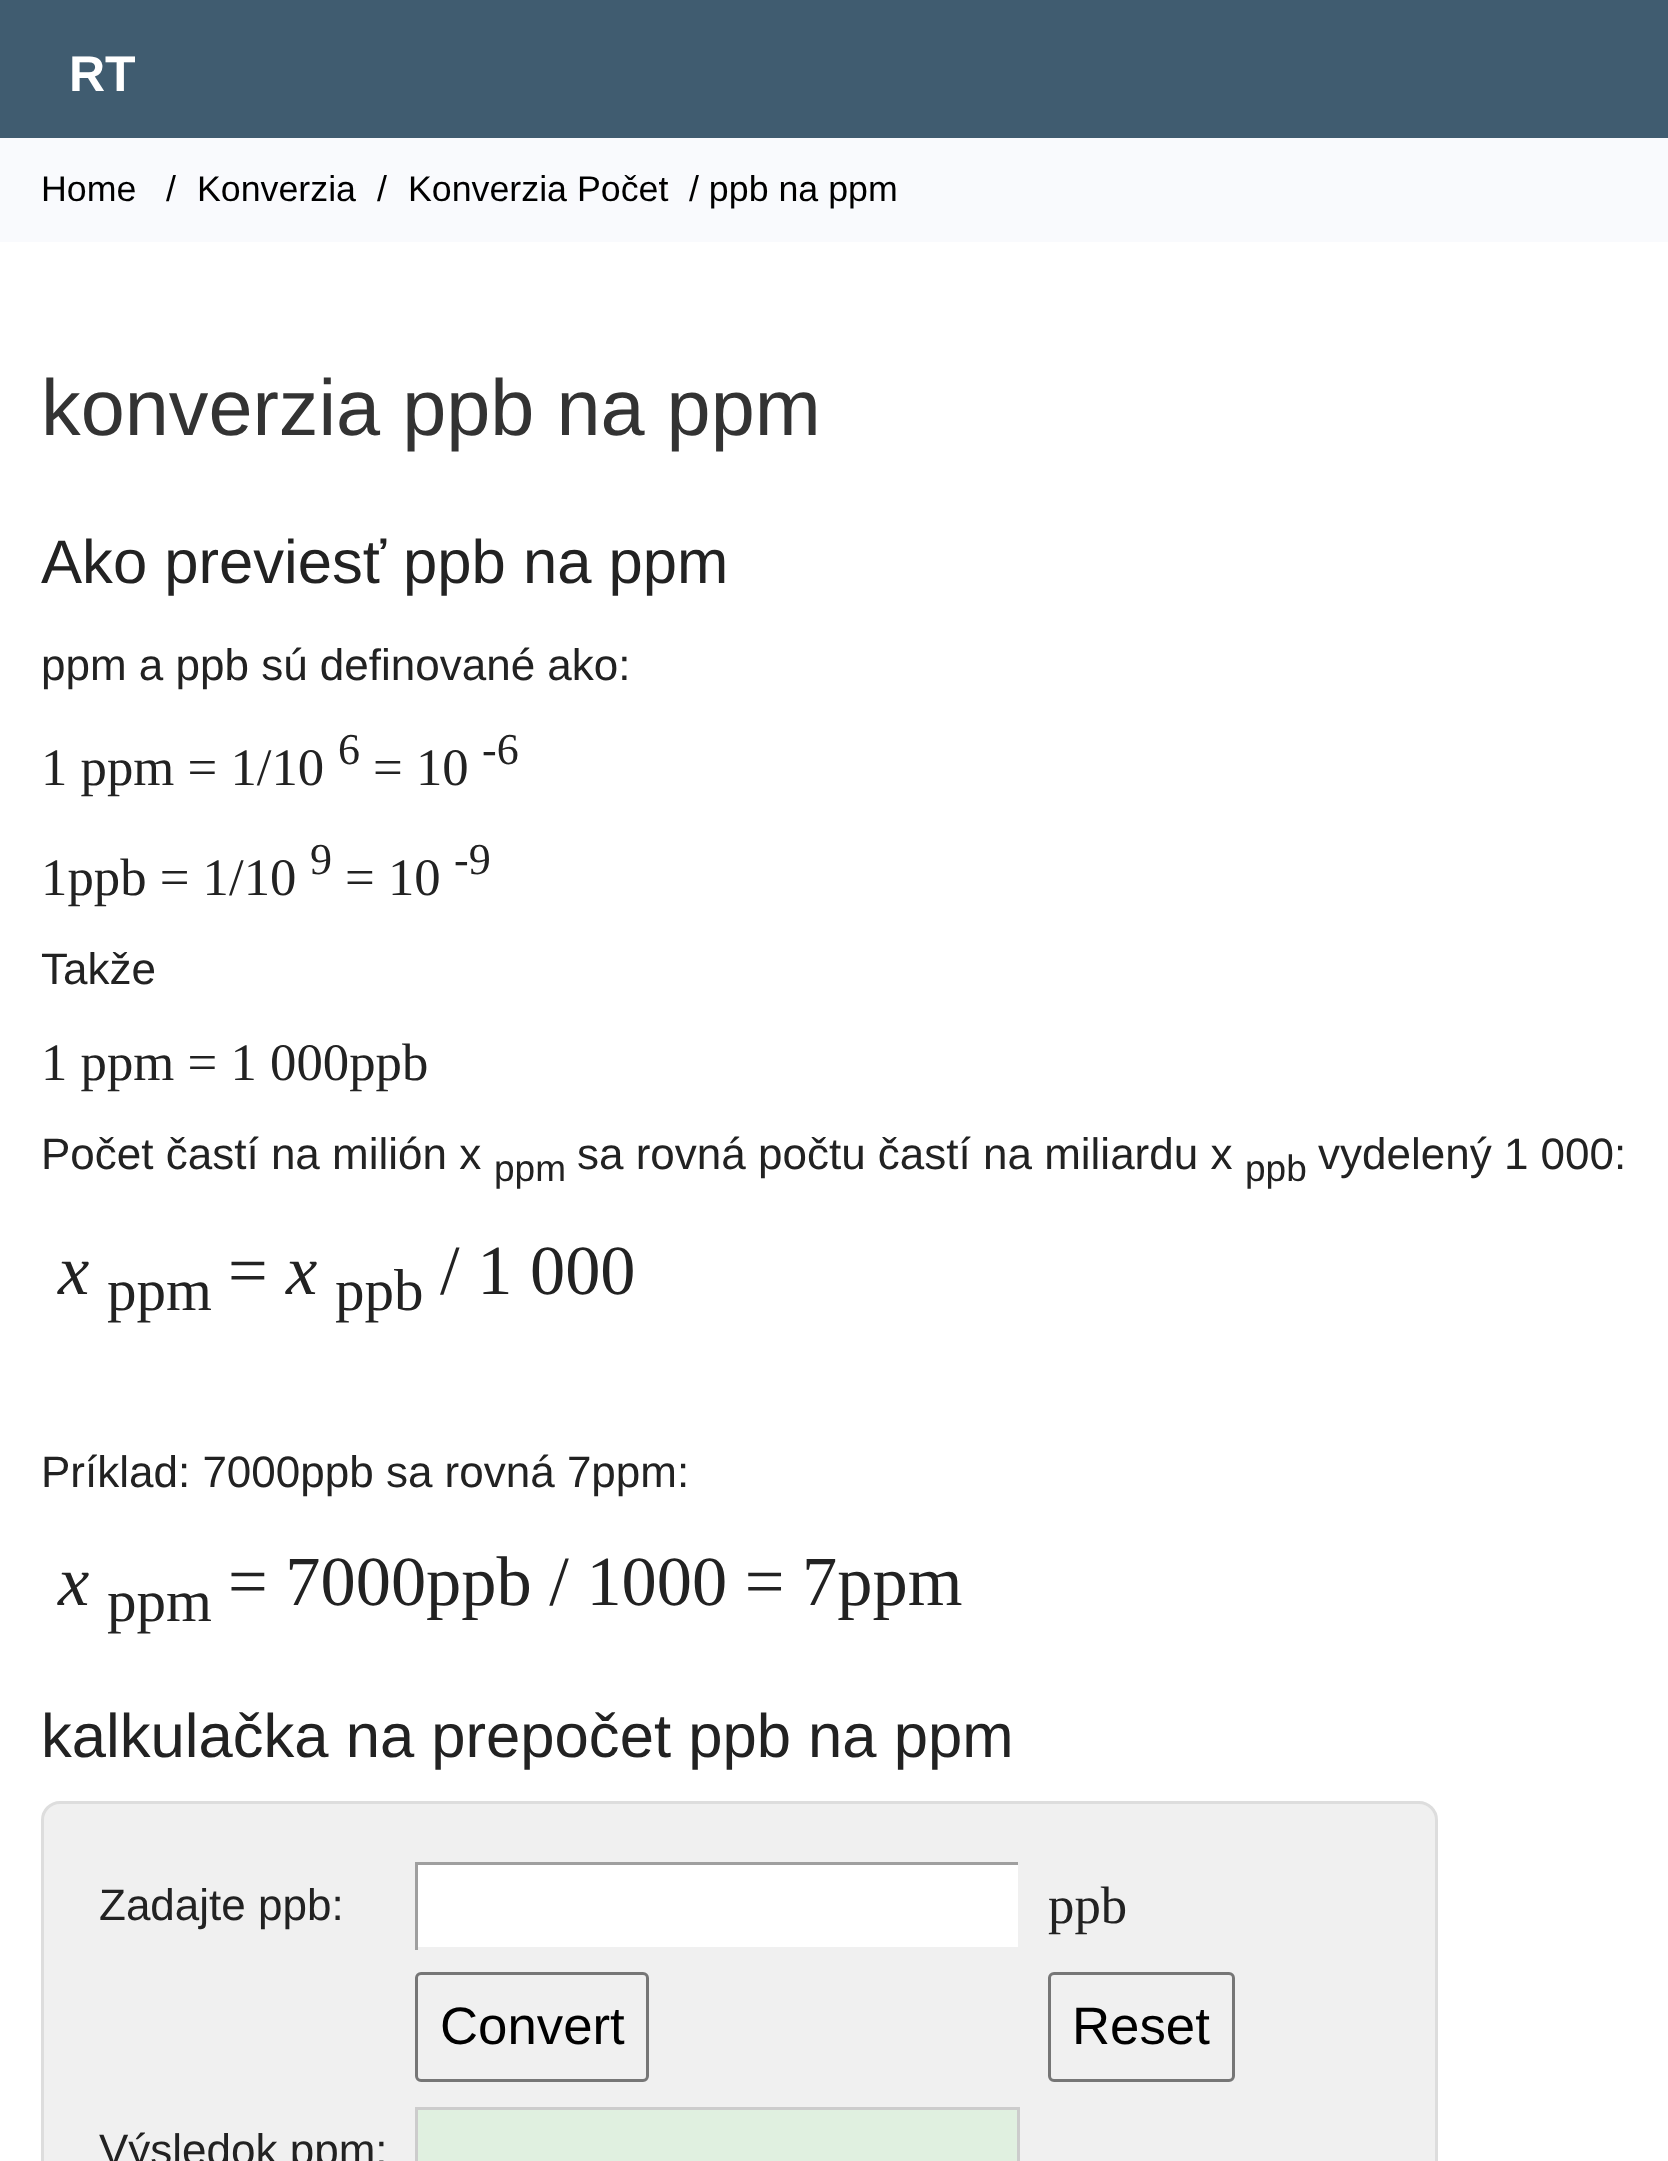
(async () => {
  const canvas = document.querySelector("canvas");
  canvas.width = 1668;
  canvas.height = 2161;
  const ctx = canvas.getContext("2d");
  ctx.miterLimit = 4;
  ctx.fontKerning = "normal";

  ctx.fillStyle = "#405c70";
  ctx.fillRect(0, 0, 1668, 2161);
  ctx.fillStyle = "#ffffff";
  ctx.fillRect(0, 242, 1668, 1919);
  ctx.fillStyle = "#f9fafd";
  ctx.fillRect(0, 138, 1668, 104);
  ctx.fillStyle = "#f0f0f0";
  ctx.beginPath();
  ctx.roundRect(42.5, 1802.5, 1394, 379, 17.5);
  ctx.fill();
  ctx.strokeStyle = "#dddddd";
  ctx.lineWidth = 3;
  ctx.stroke();
  for (const [x, y, w, h, color] of [
    [418, 1865, 600, 82, "#ffffff"],
    [415, 1862, 605, 3, "#9f9f9f"],
    [1018, 1862, 2, 3, "#eeeeee"],
    [415, 1862, 3, 88, "#9f9f9f"],
  ]) {
    ctx.fillStyle = color;
    ctx.fillRect(x, y, w, h);
  }
  ctx.beginPath();
  ctx.roundRect(416.5, 1973.5, 231, 107, 4.5);
  ctx.strokeStyle = "#767676";
  ctx.stroke();
  ctx.beginPath();
  ctx.roundRect(1049.5, 1973.5, 184, 107, 4.5);
  ctx.stroke();
  ctx.fillStyle = "#e0f0e0";
  ctx.beginPath();
  ctx.rect(416.5, 2108.5, 602, 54);
  ctx.fill();
  ctx.strokeStyle = "#cccccc";
  ctx.stroke();
  ctx.font = "bold 50px Liberation Sans";
  ctx.fillStyle = "#ffffff";
  ctx.fillText("RT", 69, 91);
  ctx.font = "35.75px Liberation Sans";
  ctx.fillStyle = "#000000";
  for (const [text, x, y] of [
    ["Home", 41, 201],
    ["/", 166, 201],
    ["Konverzia", 197, 201],
    ["/", 377, 201],
    ["Konverzia Počet", 408, 201],
    ["/ ppb na ppm", 689, 201],
  ]) {
    ctx.fillText(text, x, y);
  }
  ctx.font = "79.25px Liberation Sans";
  ctx.fillStyle = "#333333";
  ctx.fillText("konverzia ppb na ppm", 41, 435);
  ctx.font = "61.6px Liberation Sans";
  ctx.fillStyle = "#222222";
  ctx.fillText("Ako previesť ppb na ppm", 41, 583);
  ctx.font = "44px Liberation Sans";
  ctx.fillText("ppm a ppb sú definované ako:", 41, 680);
  ctx.font = "52.75px Liberation Serif";
  ctx.fillText("1 ppm = 1/10", 41, 785);
  ctx.font = "44px Liberation Serif";
  ctx.fillText("6", 338, 764);
  ctx.font = "52.75px Liberation Serif";
  ctx.fillText("= 10", 373, 785);
  ctx.font = "44px Liberation Serif";
  ctx.fillText("-6", 482, 764);
  ctx.font = "52.75px Liberation Serif";
  ctx.fillText("1ppb = 1/10", 41, 895);
  ctx.font = "44px Liberation Serif";
  ctx.fillText("9", 310, 874);
  ctx.font = "52.75px Liberation Serif";
  ctx.fillText("= 10", 345, 895);
  ctx.font = "44px Liberation Serif";
  ctx.fillText("-9", 454, 874);
  ctx.font = "44px Liberation Sans";
  ctx.fillText("Takže", 41, 984);
  ctx.font = "52.75px Liberation Serif";
  ctx.fillText("1 ppm = 1 000ppb", 41, 1080);
  ctx.font = "44px Liberation Sans";
  ctx.fillText("Počet častí na milión x", 41, 1169);
  ctx.font = "37px Liberation Sans";
  ctx.fillText("ppm", 494, 1181);
  ctx.font = "44px Liberation Sans";
  ctx.fillText("sa rovná počtu častí na miliardu x", 577, 1169);
  ctx.font = "37px Liberation Sans";
  ctx.fillText("ppb", 1245, 1181);
  ctx.font = "44px Liberation Sans";
  ctx.fillText("vydelený 1 000:", 1318, 1169);
  ctx.font = "italic 70.4px Liberation Serif";
  ctx.fillText("x", 58, 1294);
  ctx.font = "59px Liberation Serif";
  ctx.fillText("ppm", 107, 1310);
  ctx.font = "70.4px Liberation Serif";
  ctx.fillText("=", 228, 1294);
  ctx.font = "italic 70.4px Liberation Serif";
  ctx.fillText("x", 286, 1294);
  ctx.font = "59px Liberation Serif";
  ctx.fillText("ppb", 335, 1310);
  ctx.font = "70.4px Liberation Serif";
  ctx.fillText("/ 1 000", 440, 1294);
  ctx.font = "44px Liberation Sans";
  ctx.fillText("Príklad: 7000ppb sa rovná 7ppm:", 41, 1487);
  ctx.font = "italic 70.4px Liberation Serif";
  ctx.fillText("x", 58, 1605);
  ctx.font = "70.4px Liberation Serif";
  ctx.fillText("= 7000ppb / 1000 = 7ppm", 228, 1605);
  ctx.font = "59px Liberation Serif";
  ctx.fillText("ppm", 107, 1621);
  ctx.font = "61.6px Liberation Sans";
  ctx.fillText("kalkulačka na prepočet ppb na ppm", 41, 1757);
  ctx.font = "44px Liberation Sans";
  ctx.fillText("Zadajte ppb:", 99, 1920);
  ctx.font = "52.75px Liberation Serif";
  ctx.fillText("ppb", 1048, 1923);
  ctx.font = "52.75px Liberation Sans";
  ctx.fillStyle = "#000000";
  ctx.fillText("Convert", 440, 2044);
  ctx.fillText("Reset", 1072, 2044);
  ctx.font = "44px Liberation Sans";
  ctx.fillStyle = "#222222";
  ctx.fillText("Výsledok ppm:", 99, 2165);
})();
